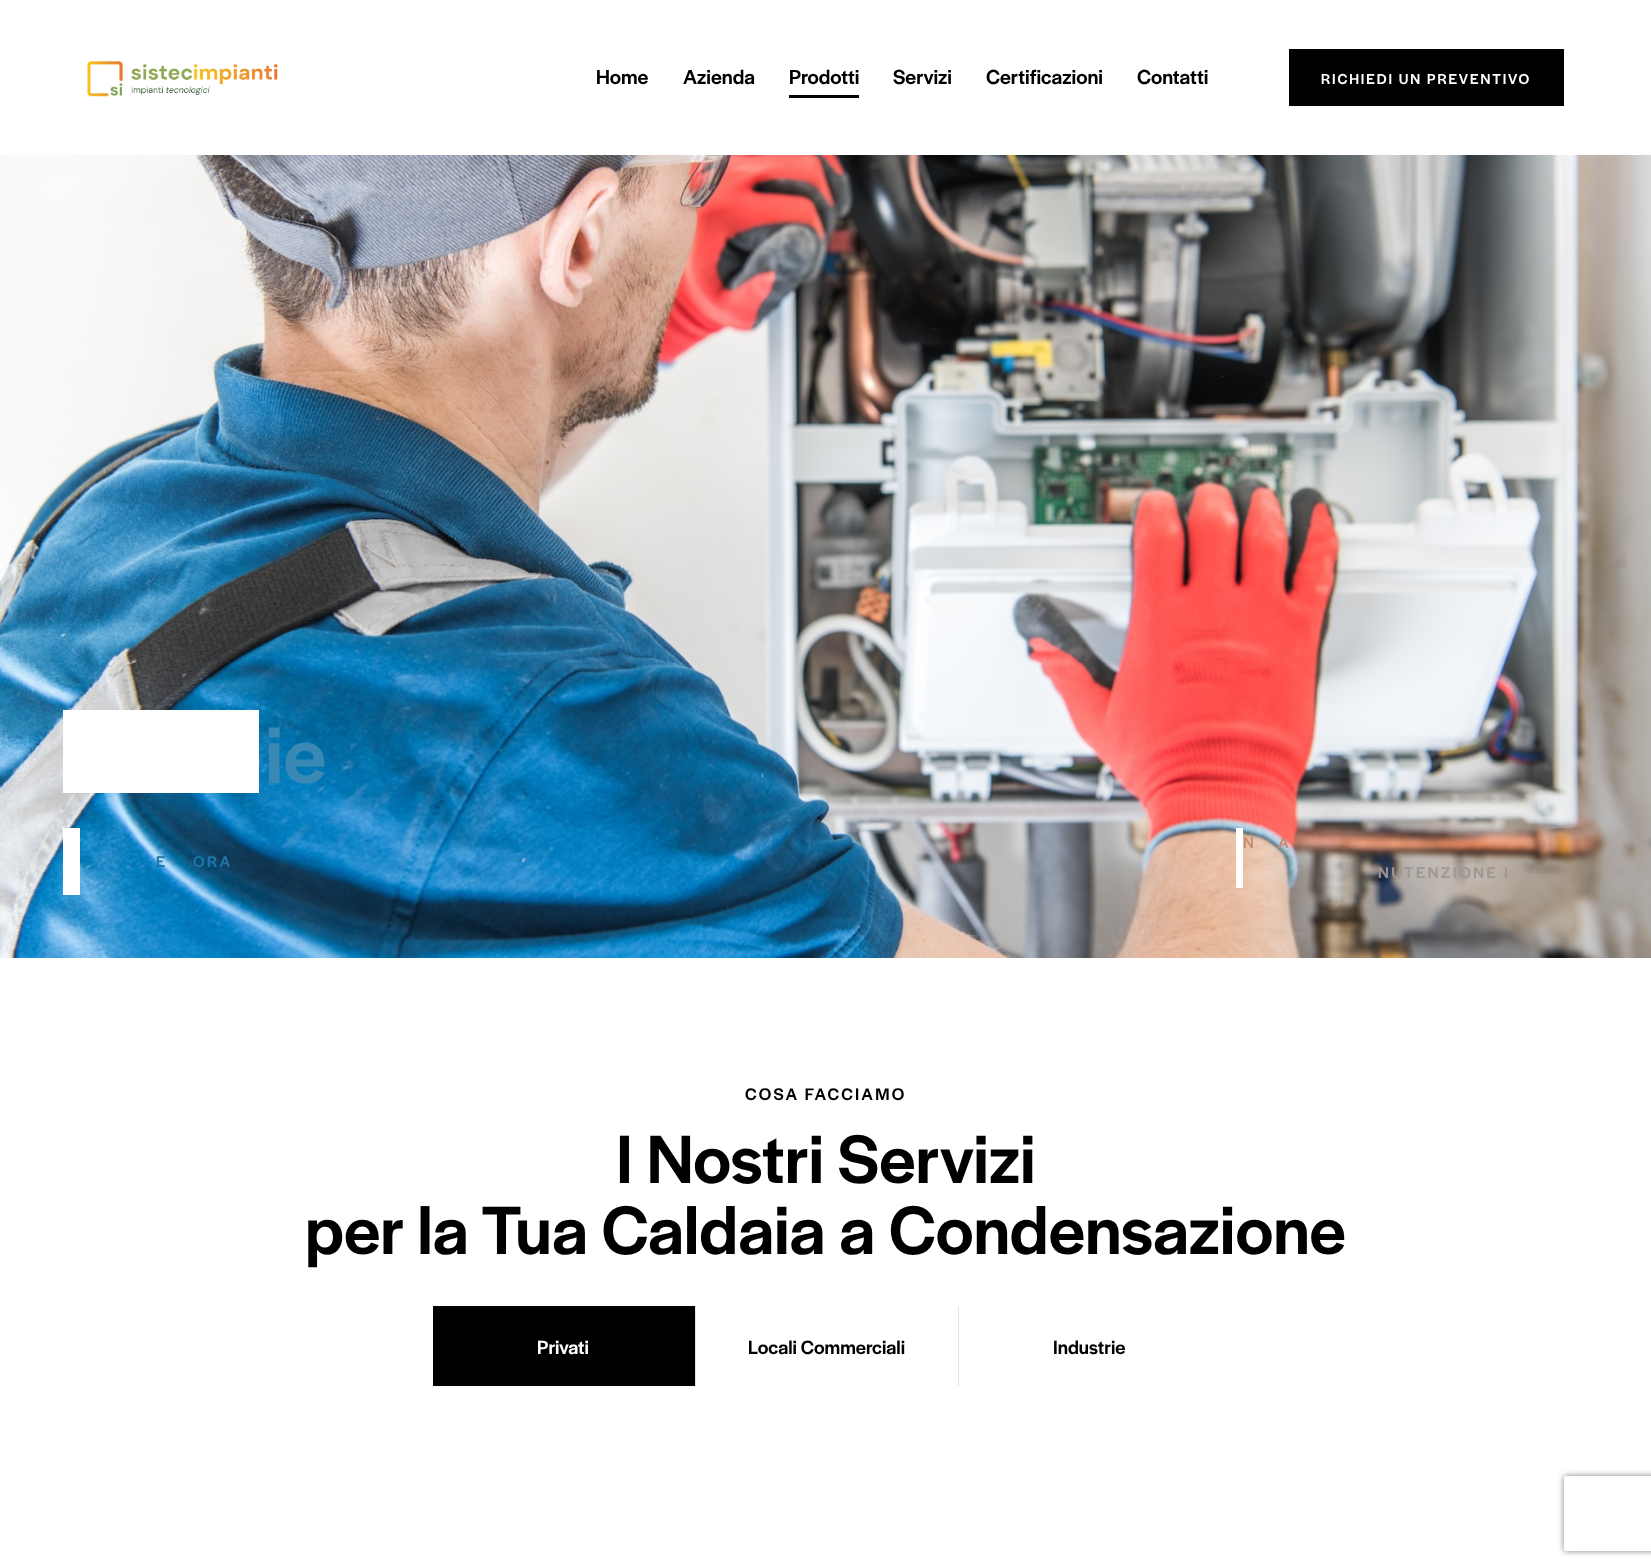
(async () => {
  const canvas = document.querySelector("canvas");
  canvas.width = 1651;
  canvas.height = 1568;
  const ctx = canvas.getContext("2d");
  ctx.miterLimit = 4;
  ctx.fontKerning = "normal";
  async function loadImage(src) {
    const img = new Image();
    img.src = src;
    await img.decode();
    return img;
  }
  let path;

  ctx.fillStyle = "#ffffff";
  ctx.fillRect(0, 0, 1651, 1568);
  ctx.drawImage(await loadImage("img/1.png"), 87, 61, 191, 36);
  ctx.fillStyle = "#000000";
  ctx.fillRect(789, 95, 70, 3);
  ctx.fillRect(1289, 49, 275, 57);
  ctx.drawImage(await loadImage("img/2.png"), 0, 155, 1651, 803);
  for (const [x, y, w, h, color] of [
    [63, 710, 196, 83, "#ffffff"],
    [63, 828, 17, 67, "#ffffff"],
    [1236, 828, 7, 60, "#ffffff"],
    [433, 1306, 262, 80, "#000000"],
    [695, 1306, 1, 80, "#dde8ee"],
    [958, 1306, 1, 80, "#dde8ee"],
  ]) {
    ctx.fillStyle = color;
    ctx.fillRect(x, y, w, h);
  }
  ctx.save();
  path = new Path2D("M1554 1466H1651V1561H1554ZM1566.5 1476H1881.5C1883 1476 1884 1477 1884 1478.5V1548.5C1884 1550 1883 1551 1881.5 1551H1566.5C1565 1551 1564 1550 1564 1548.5V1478.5C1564 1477 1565 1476 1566.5 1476Z");
  ctx.clip(path, "evenodd");
  ctx.fillStyle = "#808080";
  ctx.filter = "blur(3px)";
  ctx.beginPath();
  ctx.roundRect(1564, 1476, 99, 75, 2.5);
  ctx.fill();
  ctx.filter = "none";
  ctx.restore();
  ctx.font = "500 21.25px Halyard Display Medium";
  ctx.fillStyle = "#000000";
  for (const [text, x, y] of [
    ["Home", 596, 84],
    ["Azienda", 683, 84],
    ["Prodotti", 789, 84],
    ["Servizi", 893, 84],
    ["Certificazioni", 986, 84],
    ["Contatti", 1137, 84],
  ]) {
    ctx.fillText(text, x, y);
  }
  ctx.letterSpacing = "1.9px";
  ctx.font = "500 15px Halyard Display Medium";
  ctx.fillStyle = "#ffffff";
  ctx.fillText("RICHIEDI UN PREVENTIVO", 1321, 84);
  ctx.letterSpacing = "0px";
  ctx.font = "500 84px Halyard Display Medium";
  ctx.fillStyle = "#3a89b4";
  ctx.fillText("ie", 265, 783);
  ctx.letterSpacing = "2.5px";
  ctx.font = "500 16.25px Halyard Display Medium";
  ctx.fillStyle = "#2076a8";
  ctx.fillText("E", 156, 867);
  ctx.fillText("ORA", 193, 867);
  ctx.fillStyle = "#c78c72";
  ctx.fillText("N", 1243, 848);
  ctx.fillText("A", 1278, 848);
  ctx.fillStyle = "#9e9690";
  ctx.fillText("NUTENZIONE I", 1378, 878);
  ctx.letterSpacing = "2.25px";
  ctx.font = "500 17.5px Halyard Display Medium";
  ctx.fillStyle = "#000000";
  ctx.fillText("COSA FACCIAMO", 745, 1100);
  ctx.letterSpacing = "0px";
  ctx.font = "500 71.25px Halyard Display Medium";
  ctx.fillText("I Nostri Servizi", 616, 1183);
  ctx.fillText("per la Tua Caldaia a Condensazione", 305, 1254);
  ctx.font = "500 20px Halyard Display Medium";
  ctx.fillStyle = "#ffffff";
  ctx.fillText("Privati", 537, 1354);
  ctx.fillStyle = "#000000";
  ctx.fillText("Locali Commerciali", 748, 1354);
  ctx.fillText("Industrie", 1053, 1354);
})();
